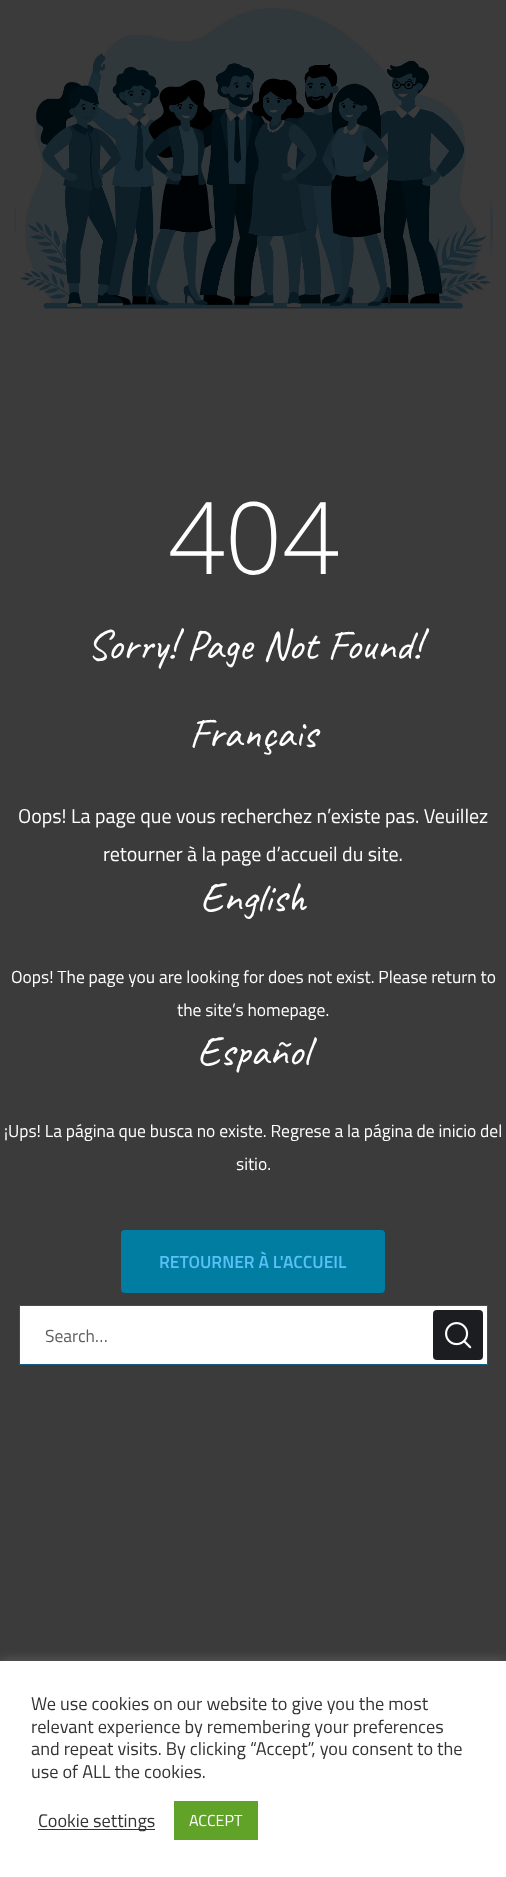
(async () => {
  const canvas = document.querySelector("canvas");
  canvas.width = 506;
  canvas.height = 1877;
  const ctx = canvas.getContext("2d");
  ctx.miterLimit = 4;
  ctx.fontKerning = "normal";
  async function loadImage(src) {
    const img = new Image();
    img.src = src;
    await img.decode();
    return img;
  }

  ctx.fillStyle = "#3b3b3b";
  ctx.fillRect(0, 0, 506, 1877);
  ctx.drawImage(await loadImage("img/1.png"), 14, 7, 479, 302);
  ctx.fillStyle = "#007da0";
  ctx.beginPath();
  ctx.roundRect(121, 1230, 264, 63, 4);
  ctx.fill();
  ctx.fillStyle = "#ffffff";
  ctx.beginPath();
  ctx.roundRect(19.5, 1305.5, 468, 59, 0.5);
  ctx.fill();
  ctx.strokeStyle = "#125d84";
  ctx.stroke();
  ctx.fillStyle = "#1b1d21";
  ctx.beginPath();
  ctx.roundRect(433, 1310, 50, 50, 4);
  ctx.fill();
  ctx.drawImage(await loadImage("img/2.png"), 445, 1322, 27, 27);
  ctx.fillStyle = "rgba(172, 171, 171, 0.3)";
  ctx.filter = "blur(6px)";
  ctx.beginPath();
  ctx.rect(0, 1660, 506, 216);
  ctx.fill();
  ctx.filter = "none";
  for (const [x, y, w, h, color] of [
    [0, 1661, 506, 216, "#ffffff"],
    [38, 1829, 117, 1, "#333333"],
    [174, 1801, 84, 39, "#61a229"],
  ]) {
    ctx.fillStyle = color;
    ctx.fillRect(x, y, w, h);
  }
  ctx.font = "300 100px Open Sans";
  ctx.fillStyle = "#ffffff";
  ctx.fillText("404", 168, 574);
  ctx.font = "42.5px Caveat";
  ctx.fillText("Sorry! Page Not Found!", 87, 659);
  ctx.fillText("Français", 189, 747);
  ctx.font = "20px Titillium Web";
  ctx.fillText("Oops! La page que vous recherchez n’existe pas. Veuillez", 18, 823);
  ctx.fillText("retourner à la page d’accueil du site.", 103, 861);
  ctx.font = "42.5px Caveat";
  ctx.fillText("English", 200, 911);
  ctx.font = "17.5px Titillium Web";
  ctx.fillText("Oops! The page you are looking for does not exist. Please return to", 11, 983);
  ctx.fillText("the site’s homepage.", 177, 1016);
  ctx.font = "42.5px Caveat";
  ctx.fillText("Español", 197, 1065);
  ctx.font = "17.5px Titillium Web";
  ctx.fillText("¡Ups! La página que busca no existe. Regrese a la página de inicio del", 4, 1137);
  ctx.fillText("sitio.", 236, 1170);
  ctx.font = "600 17.5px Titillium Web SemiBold";
  ctx.fillStyle = "#59c1f7";
  ctx.fillText("RETOURNER À L'ACCUEIL", 159, 1268);
  ctx.font = "17.5px Titillium Web";
  ctx.fillStyle = "#5f5f5f";
  ctx.fillText("Search…", 45, 1342);
  ctx.font = "18.3px Titillium Web";
  ctx.fillStyle = "#333333";
  for (const [text, x, y] of [
    ["We use cookies on our website to give you the most", 31, 1710],
    ["relevant experience by remembering your preferences", 31, 1733],
    ["and repeat visits. By clicking “Accept”, you consent to the", 31, 1755],
    ["use of ALL the cookies.", 31, 1778],
    ["Cookie settings", 38, 1827],
  ]) {
    ctx.fillText(text, x, y);
  }
  ctx.font = "16px Titillium Web";
  ctx.fillStyle = "#ffffff";
  ctx.fillText("ACCEPT", 189, 1826);
})();
